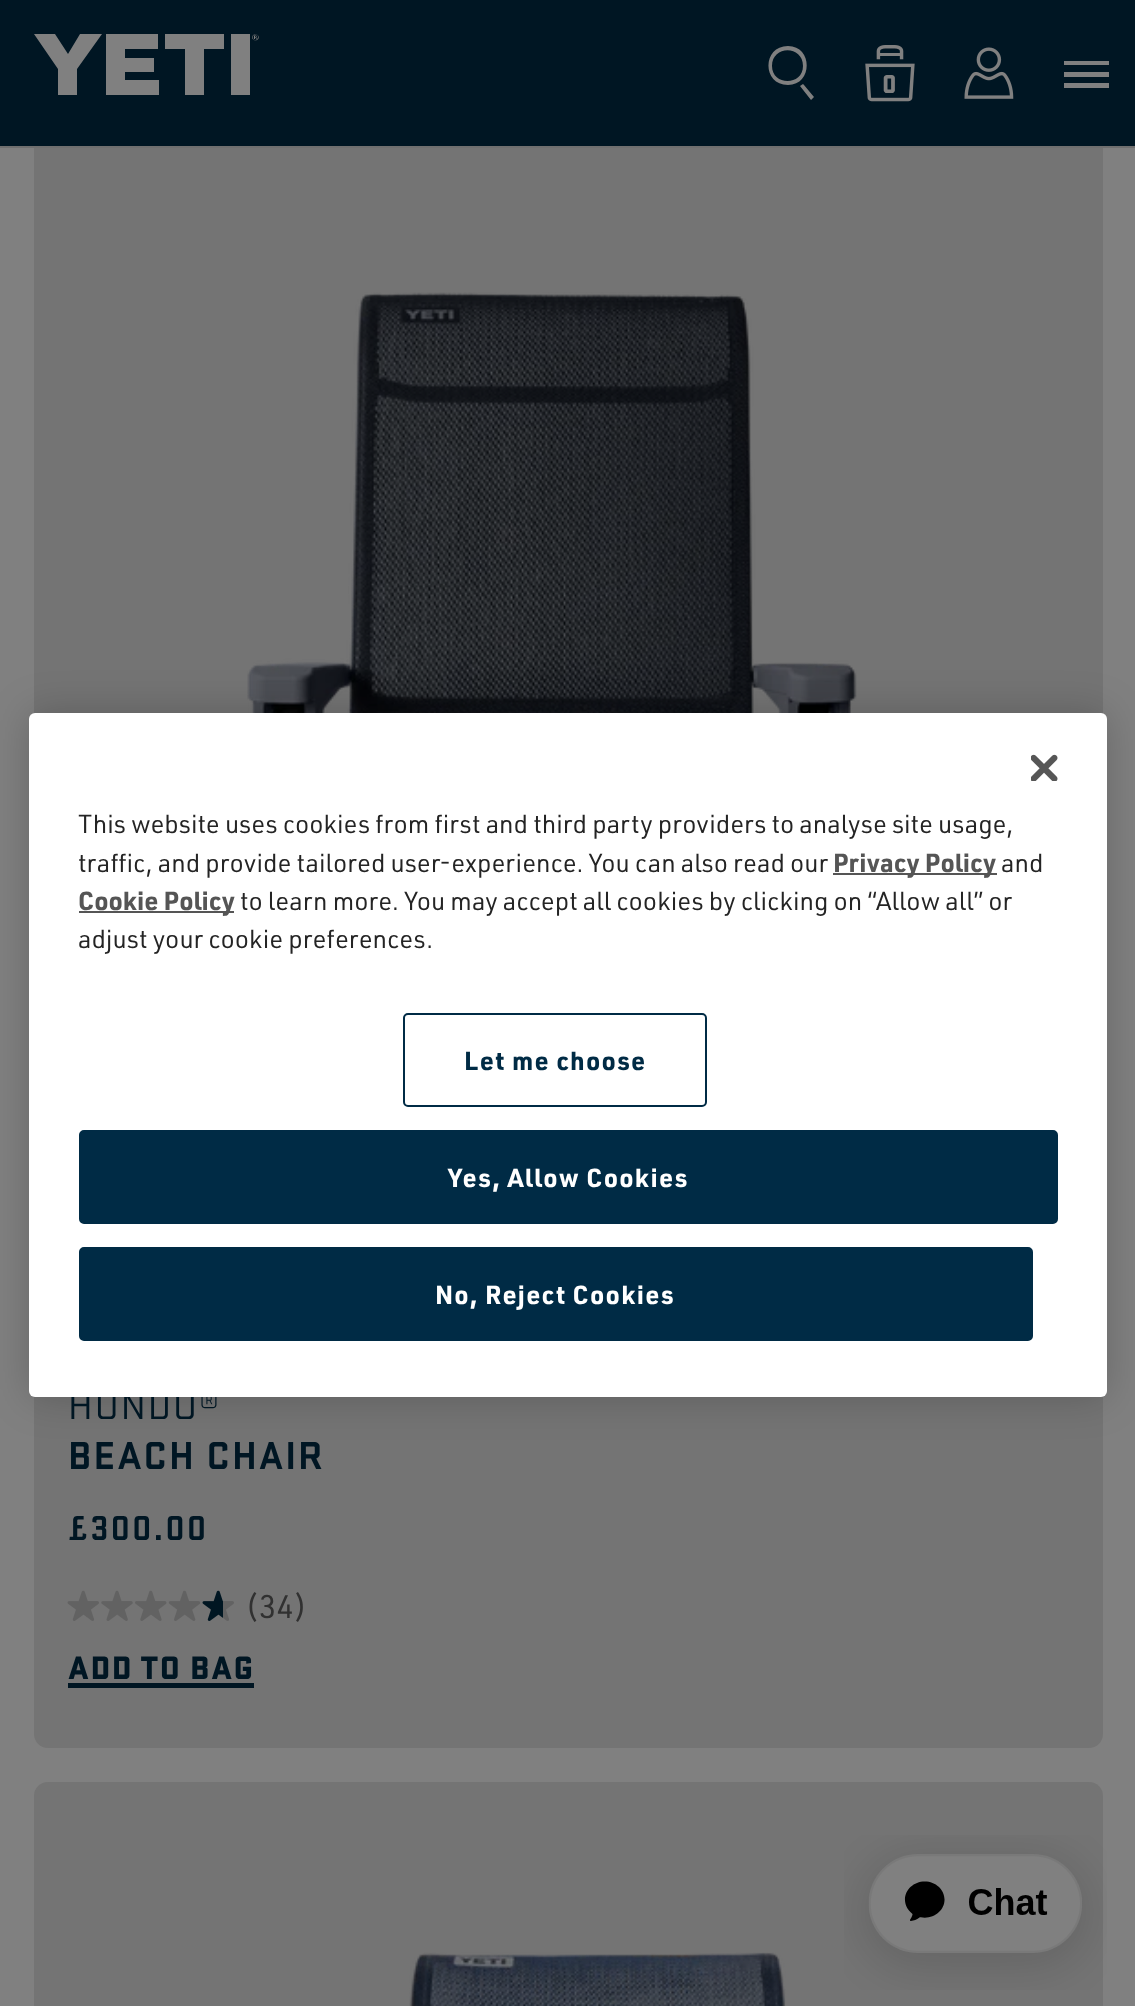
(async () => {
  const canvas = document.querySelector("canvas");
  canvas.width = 1135;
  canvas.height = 2006;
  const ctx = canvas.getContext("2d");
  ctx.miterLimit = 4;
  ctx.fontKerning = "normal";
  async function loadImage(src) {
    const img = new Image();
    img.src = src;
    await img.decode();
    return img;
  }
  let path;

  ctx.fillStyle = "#808080";
  ctx.fillRect(0, 0, 1135, 2006);
  ctx.fillStyle = "#747474";
  ctx.beginPath();
  ctx.roundRect(34, 36, 1069, 1712, 14);
  ctx.fill();
  ctx.fillStyle = "#6f6f6f";
  ctx.fillRect(0, 146, 1135, 2);
  ctx.fillStyle = "#001623";
  ctx.fillRect(0, 0, 1135, 146);
  ctx.fillStyle = "#808080";
  path = new Path2D("M34 34L58 69V95H77V69L102 34H80L68 54L55 34Z");
  ctx.fill(path);
  path = new Path2D("M106 34V95H159V80H125V72H154V58H125V49H158V34Z");
  ctx.fill(path);
  path = new Path2D("M165 34H224V49H204V95H185V49H165Z");
  ctx.fill(path);
  ctx.fillRect(231, 34, 19, 61);
  path = new Path2D("M252.5 36C254 32.5 260 34.5 258.5 38.5C257 42 250.5 40 252.5 36ZM253 38.5C254 41.5 259 39.5 258 36C256.5 33 251.5 35 253 38.5ZM255.5 35.5C257 35.5 257.5 37.5 256 37.5L257 39H256.5L255.5 37.5H255V39H254V35.5ZM255.5 37C257 37 257 36 255 36V37Z");
  ctx.fill(path, "evenodd");
  path = new Path2D("M772 66C772 45 803 45 803 66C803 86 772 86 772 66ZM788 46C762 46 762 85 788 85C813 85 813 46 788 46ZM804 85L803 84L800 86L811 100L814 97Z");
  ctx.fill(path);
  ctx.drawImage(await loadImage("img/1.png"), 865, 45, 50, 57);
  ctx.drawImage(await loadImage("img/2.png"), 964, 47, 50, 52);
  for (const [x, y, w, h, color] of [
    [1064, 61, 45, 4, "#808080"],
    [1064, 72, 45, 5, "#808080"],
    [1064, 83, 45, 5, "#808080"],
  ]) {
    ctx.fillStyle = color;
    ctx.fillRect(x, y, w, h);
  }
  ctx.drawImage(await loadImage("img/4.png"), 247, 292, 610, 421);
  ctx.fillStyle = "rgba(0, 0, 0, 0.2)";
  ctx.filter = "blur(20px)";
  ctx.beginPath();
  ctx.roundRect(29, 713, 1078, 684, 6);
  ctx.fill();
  ctx.filter = "none";
  ctx.drawImage(await loadImage("img/5.png"), 67, 1590, 32, 31);
  ctx.drawImage(await loadImage("img/6.png"), 101, 1590, 32, 31);
  ctx.drawImage(await loadImage("img/7.png"), 135, 1590, 32, 31);
  ctx.drawImage(await loadImage("img/8.png"), 168, 1590, 33, 31);
  ctx.drawImage(await loadImage("img/9.png"), 202, 1590, 32, 31);
  ctx.fillStyle = "#001623";
  ctx.fillRect(68, 1683, 186, 5);
  ctx.fillStyle = "#747474";
  ctx.beginPath();
  ctx.roundRect(34, 1782, 1069, 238, 14);
  ctx.fill();
  ctx.drawImage(await loadImage("img/10.png"), 409, 1952, 377, 54);
  ctx.drawImage(await loadImage("img/11.png"), 844, 1835, 263, 155);
  ctx.letterSpacing = "1px";
  ctx.font = "900 27px 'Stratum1'";
  ctx.fillStyle = "#808080";
  ctx.fillText("0", 882, 93);
  ctx.letterSpacing = "2px";
  ctx.font = "40.5px 'Stratum1'";
  ctx.fillStyle = "#001623";
  ctx.fillText("HONDO®", 68, 1419);
  ctx.fillStyle = "#ffffff";
  ctx.beginPath();
  ctx.roundRect(29, 713, 1078, 684, 6);
  ctx.fill();
  ctx.drawImage(await loadImage("img/3.png"), 1031, 754, 27, 27);
  ctx.beginPath();
  ctx.roundRect(404, 1014, 302, 92, 4);
  ctx.strokeStyle = "#002b45";
  ctx.lineWidth = 2;
  ctx.stroke();
  ctx.letterSpacing = "1.25px";
  ctx.font = "bold 25.6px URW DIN";
  ctx.fillStyle = "#002b45";
  ctx.fillText("Let me choose", 464, 1070);
  ctx.beginPath();
  ctx.roundRect(80, 1131, 977, 92, 4);
  ctx.fill();
  ctx.stroke();
  ctx.fillStyle = "#ffffff";
  ctx.fillText("Yes, Allow Cookies", 448, 1187);
  ctx.fillStyle = "#002b45";
  ctx.beginPath();
  ctx.roundRect(80, 1248, 952, 92, 4);
  ctx.fill();
  ctx.stroke();
  ctx.fillStyle = "#ffffff";
  ctx.fillText("No, Reject Cookies", 435, 1304);
  ctx.letterSpacing = "0px";
  ctx.font = "25.6px URW DIN";
  ctx.fillStyle = "#242424";
  ctx.fillText("adjust your cookie preferences.", 78, 948);
  ctx.fillText("to learn more. You may accept all cookies by clicking on “Allow all” or", 240, 910);
  ctx.fillStyle = "#555555";
  ctx.fillRect(79, 911, 155, 2);
  ctx.font = "bold 25.6px URW DIN";
  ctx.fillText("Cookie Policy", 78, 910);
  ctx.font = "25.6px URW DIN";
  ctx.fillStyle = "#242424";
  ctx.fillText("and", 1001, 872);
  ctx.fillStyle = "#555555";
  ctx.fillRect(833, 873, 164, 2);
  ctx.font = "bold 25.6px URW DIN";
  ctx.fillText("Privacy Policy", 833, 872);
  ctx.font = "25.6px URW DIN";
  ctx.fillStyle = "#242424";
  ctx.fillText("traffic, and provide tailored user-experience. You can also read our", 78, 872);
  ctx.fillText("This website uses cookies from first and third party providers to analyse site usage,", 78, 833);
  ctx.letterSpacing = "2px";
  ctx.font = "bold 40.5px 'Stratum1'";
  ctx.fillStyle = "#001623";
  ctx.fillText("BEACH CHAIR", 68, 1469);
  ctx.font = "bold 36px 'Stratum1'";
  ctx.fillText("£300.00", 68, 1540);
  ctx.letterSpacing = "0px";
  ctx.font = "32px URW DIN";
  ctx.fillStyle = "#313131";
  ctx.fillText("(34)", 245, 1618);
  ctx.letterSpacing = "1.5px";
  ctx.font = "900 33.75px 'Stratum1'";
  ctx.fillStyle = "#001623";
  ctx.fillText("ADD TO BAG", 68, 1679);
})();
